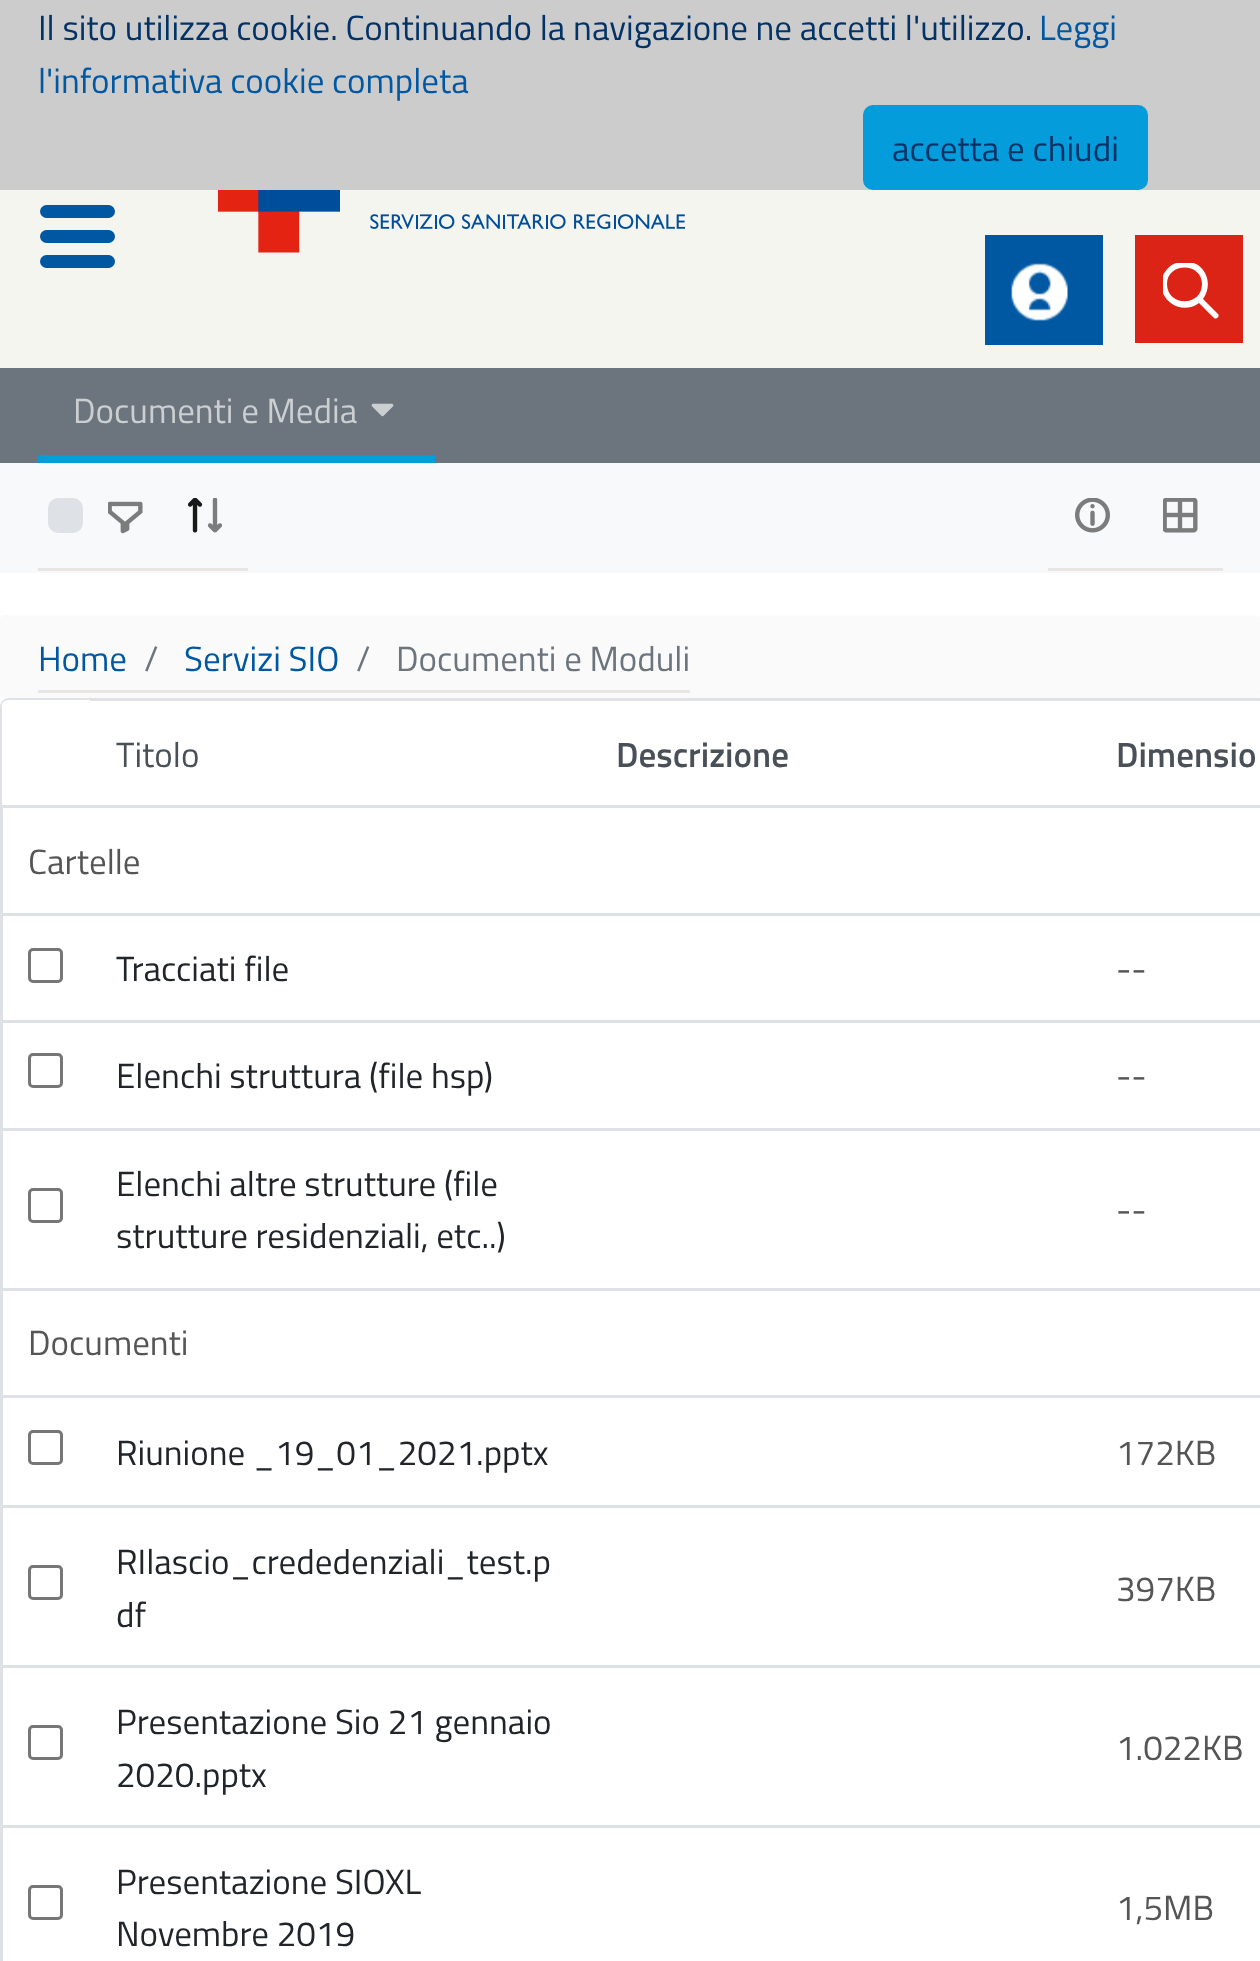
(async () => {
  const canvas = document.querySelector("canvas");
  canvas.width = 1260;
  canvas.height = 1961;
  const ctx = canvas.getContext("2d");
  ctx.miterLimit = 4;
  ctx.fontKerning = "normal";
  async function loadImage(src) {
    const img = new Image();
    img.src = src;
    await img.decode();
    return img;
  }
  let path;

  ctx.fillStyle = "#ffffff";
  ctx.fillRect(0, 0, 1260, 1961);
  ctx.fillStyle = "#cccccc";
  ctx.fillRect(0, 0, 1260, 190);
  ctx.fillStyle = "#049cdb";
  ctx.beginPath();
  ctx.roundRect(864.5, 106.5, 282, 82, 8.5);
  ctx.fill();
  ctx.strokeStyle = "#049cdb";
  ctx.lineWidth = 3;
  ctx.stroke();
  ctx.fillStyle = "#f5f5f0";
  ctx.fillRect(0, 190, 1260, 178);
  ctx.fillStyle = "#0058a3";
  ctx.beginPath();
  ctx.roundRect(40, 205, 75, 13, 6.5);
  ctx.fill();
  ctx.beginPath();
  ctx.roundRect(40, 230, 75, 13, 6.5);
  ctx.fill();
  ctx.beginPath();
  ctx.roundRect(40, 255, 75, 13, 6.5);
  ctx.fill();
  ctx.drawImage(await loadImage("img/1.png"), 218, 190, 467, 63);
  ctx.fillRect(985, 235, 118, 110);
  ctx.drawImage(await loadImage("img/2.png"), 1011, 263, 57, 58);
  ctx.fillStyle = "#db2316";
  ctx.fillRect(1135, 235, 108, 108);
  ctx.save();
  ctx.beginPath();
  ctx.rect(1163, 263, 57, 57);
  ctx.clip();
  ctx.fillStyle = "#ffffff";
  path = new Path2D("M1218 314L1203 299C1211 288 1209 273 1198 265C1191 261 1183 260 1176 263C1170 265 1166 270 1163 275C1154 298 1180 317 1199 303L1214 318C1217 320 1220 316 1218 314ZM1167 284C1167 262 1202 262 1202 284C1202 307 1167 307 1167 284Z");
  ctx.fill(path);
  ctx.restore();
  ctx.fillStyle = "#6c757d";
  ctx.fillRect(0, 368, 1260, 95);
  ctx.drawImage(await loadImage("img/3.png"), 371, 403, 23, 14);
  for (const [x, y, w, h, color] of [
    [38, 455, 397, 8, "#049cdb"],
    [0, 463, 1260, 110, "#f8f9fa"],
    [38, 568, 52, 3, "#e7e6e4"],
  ]) {
    ctx.fillStyle = color;
    ctx.fillRect(x, y, w, h);
  }
  ctx.fillStyle = "#dee2e6";
  ctx.beginPath();
  ctx.roundRect(48, 498, 35, 35, 10);
  ctx.fill();
  ctx.fillStyle = "#e7e6e4";
  ctx.fillRect(90, 568, 158, 3);
  ctx.drawImage(await loadImage("img/4.png"), 188, 498, 35, 35);
  ctx.drawImage(await loadImage("img/5.png"), 108, 501, 35, 33);
  ctx.fillRect(1048, 568, 175, 3);
  ctx.drawImage(await loadImage("img/6.png"), 1075, 498, 35, 35);
  ctx.drawImage(await loadImage("img/7.png"), 1163, 498, 35, 35);
  ctx.fillStyle = "#fafafa";
  ctx.beginPath();
  ctx.roundRect(0, 615, 1260, 83, 5);
  ctx.fill();
  ctx.fillStyle = "#e7e6e4";
  ctx.fillRect(38, 690, 652, 3);
  ctx.fillStyle = "#dee2e6";
  path = new Path2D("M10 698C4 698 0 702 0 708V805H2V706C2 701 6 698 11 698Z");
  ctx.fill(path);
  path = new Path2D("M9 700H90V698H10C4 698 0 702 0 708C0 704 4 700 9 700Z");
  ctx.fill(path);
  for (const [x, y, w, h, color] of [
    [90, 698, 1170, 3, "#dee2e6"],
    [0, 805, 3, 1156, "#dee2e6"],
    [0, 805, 1260, 3, "#dee2e6"],
    [0, 913, 1260, 3, "#dee2e6"],
  ]) {
    ctx.fillStyle = color;
    ctx.fillRect(x, y, w, h);
  }
  ctx.beginPath();
  ctx.roundRect(29.5, 949.5, 32, 32, 3.5);
  ctx.strokeStyle = "#767676";
  ctx.stroke();
  ctx.fillRect(0, 1020, 1260, 3);
  ctx.beginPath();
  ctx.roundRect(29.5, 1054.5, 32, 32, 3.5);
  ctx.stroke();
  ctx.fillRect(0, 1128, 1260, 3);
  ctx.beginPath();
  ctx.roundRect(29.5, 1189.5, 32, 32, 3.5);
  ctx.stroke();
  ctx.fillRect(0, 1288, 1260, 3);
  ctx.fillRect(0, 1395, 1260, 3);
  ctx.beginPath();
  ctx.roundRect(29.5, 1431.5, 32, 32, 3.5);
  ctx.stroke();
  ctx.fillRect(0, 1505, 1260, 3);
  ctx.beginPath();
  ctx.roundRect(29.5, 1566.5, 32, 32, 3.5);
  ctx.stroke();
  ctx.fillRect(0, 1665, 1260, 3);
  ctx.beginPath();
  ctx.roundRect(29.5, 1726.5, 32, 32, 3.5);
  ctx.stroke();
  ctx.fillRect(0, 1825, 1260, 3);
  ctx.beginPath();
  ctx.roundRect(29.5, 1886.5, 32, 32, 3.5);
  ctx.stroke();
  ctx.font = "35px Titillium Web";
  ctx.fillStyle = "#033366";
  ctx.fillText("Il sito utilizza cookie. Continuando la navigazione ne accetti l'utilizzo.", 38, 40);
  ctx.fillStyle = "#0058a3";
  ctx.fillText("Leggi", 1039, 40);
  ctx.fillText("l'informativa cookie completa", 38, 93);
  ctx.fillStyle = "#033366";
  ctx.fillText("accetta e chiudi", 892, 161);
  ctx.fillStyle = "#cccfd2";
  ctx.fillText("Documenti e Media", 73, 423);
  ctx.fillStyle = "#0058a3";
  ctx.fillText("Home", 38, 671);
  ctx.fillStyle = "#6c757d";
  ctx.fillText("/", 144, 671);
  ctx.fillStyle = "#0058a3";
  ctx.fillText("Servizi SIO", 184, 671);
  ctx.fillStyle = "#6c757d";
  ctx.fillText("/", 356, 671);
  ctx.fillText("Documenti e Moduli", 396, 671);
  ctx.fillStyle = "#495057";
  ctx.fillText("Titolo", 116, 767);
  ctx.font = "600 35px Titillium Web";
  ctx.fillText("Descrizione", 616, 767);
  ctx.fillText("Dimensio", 1116, 767);
  ctx.font = "35px Titillium Web";
  ctx.fillStyle = "#555555";
  ctx.fillText("Cartelle", 28, 874);
  ctx.fillStyle = "#212529";
  ctx.fillText("Tracciati file", 116, 981);
  ctx.fillStyle = "#555555";
  ctx.fillText("--", 1116, 981);
  ctx.fillStyle = "#212529";
  ctx.fillText("Elenchi struttura (file hsp)", 116, 1088);
  ctx.fillStyle = "#555555";
  ctx.fillText("--", 1116, 1088);
  ctx.fillStyle = "#212529";
  ctx.fillText("Elenchi altre strutture (file", 116, 1196);
  ctx.fillText("strutture residenziali, etc..)", 116, 1248);
  ctx.fillStyle = "#555555";
  ctx.fillText("--", 1116, 1222);
  ctx.fillText("Documenti", 28, 1355);
  ctx.fillStyle = "#212529";
  ctx.fillText("Riunione _19_01_2021.pptx", 116, 1465);
  ctx.fillStyle = "#555555";
  ctx.fillText("172KB", 1116, 1465);
  ctx.fillStyle = "#212529";
  ctx.fillText("RIlascio_crededenziali_test.p", 116, 1574);
  ctx.fillText("df", 116, 1627);
  ctx.fillStyle = "#555555";
  ctx.fillText("397KB", 1116, 1601);
  ctx.fillStyle = "#212529";
  ctx.fillText("Presentazione Sio 21 gennaio", 116, 1734);
  ctx.fillText("2020.pptx", 116, 1787);
  ctx.fillStyle = "#555555";
  ctx.fillText("1.022KB", 1116, 1760);
  ctx.fillStyle = "#212529";
  ctx.fillText("Presentazione SIOXL", 116, 1894);
  ctx.fillText("Novembre 2019", 116, 1946);
  ctx.fillStyle = "#555555";
  ctx.fillText("1,5MB", 1116, 1920);
})();
